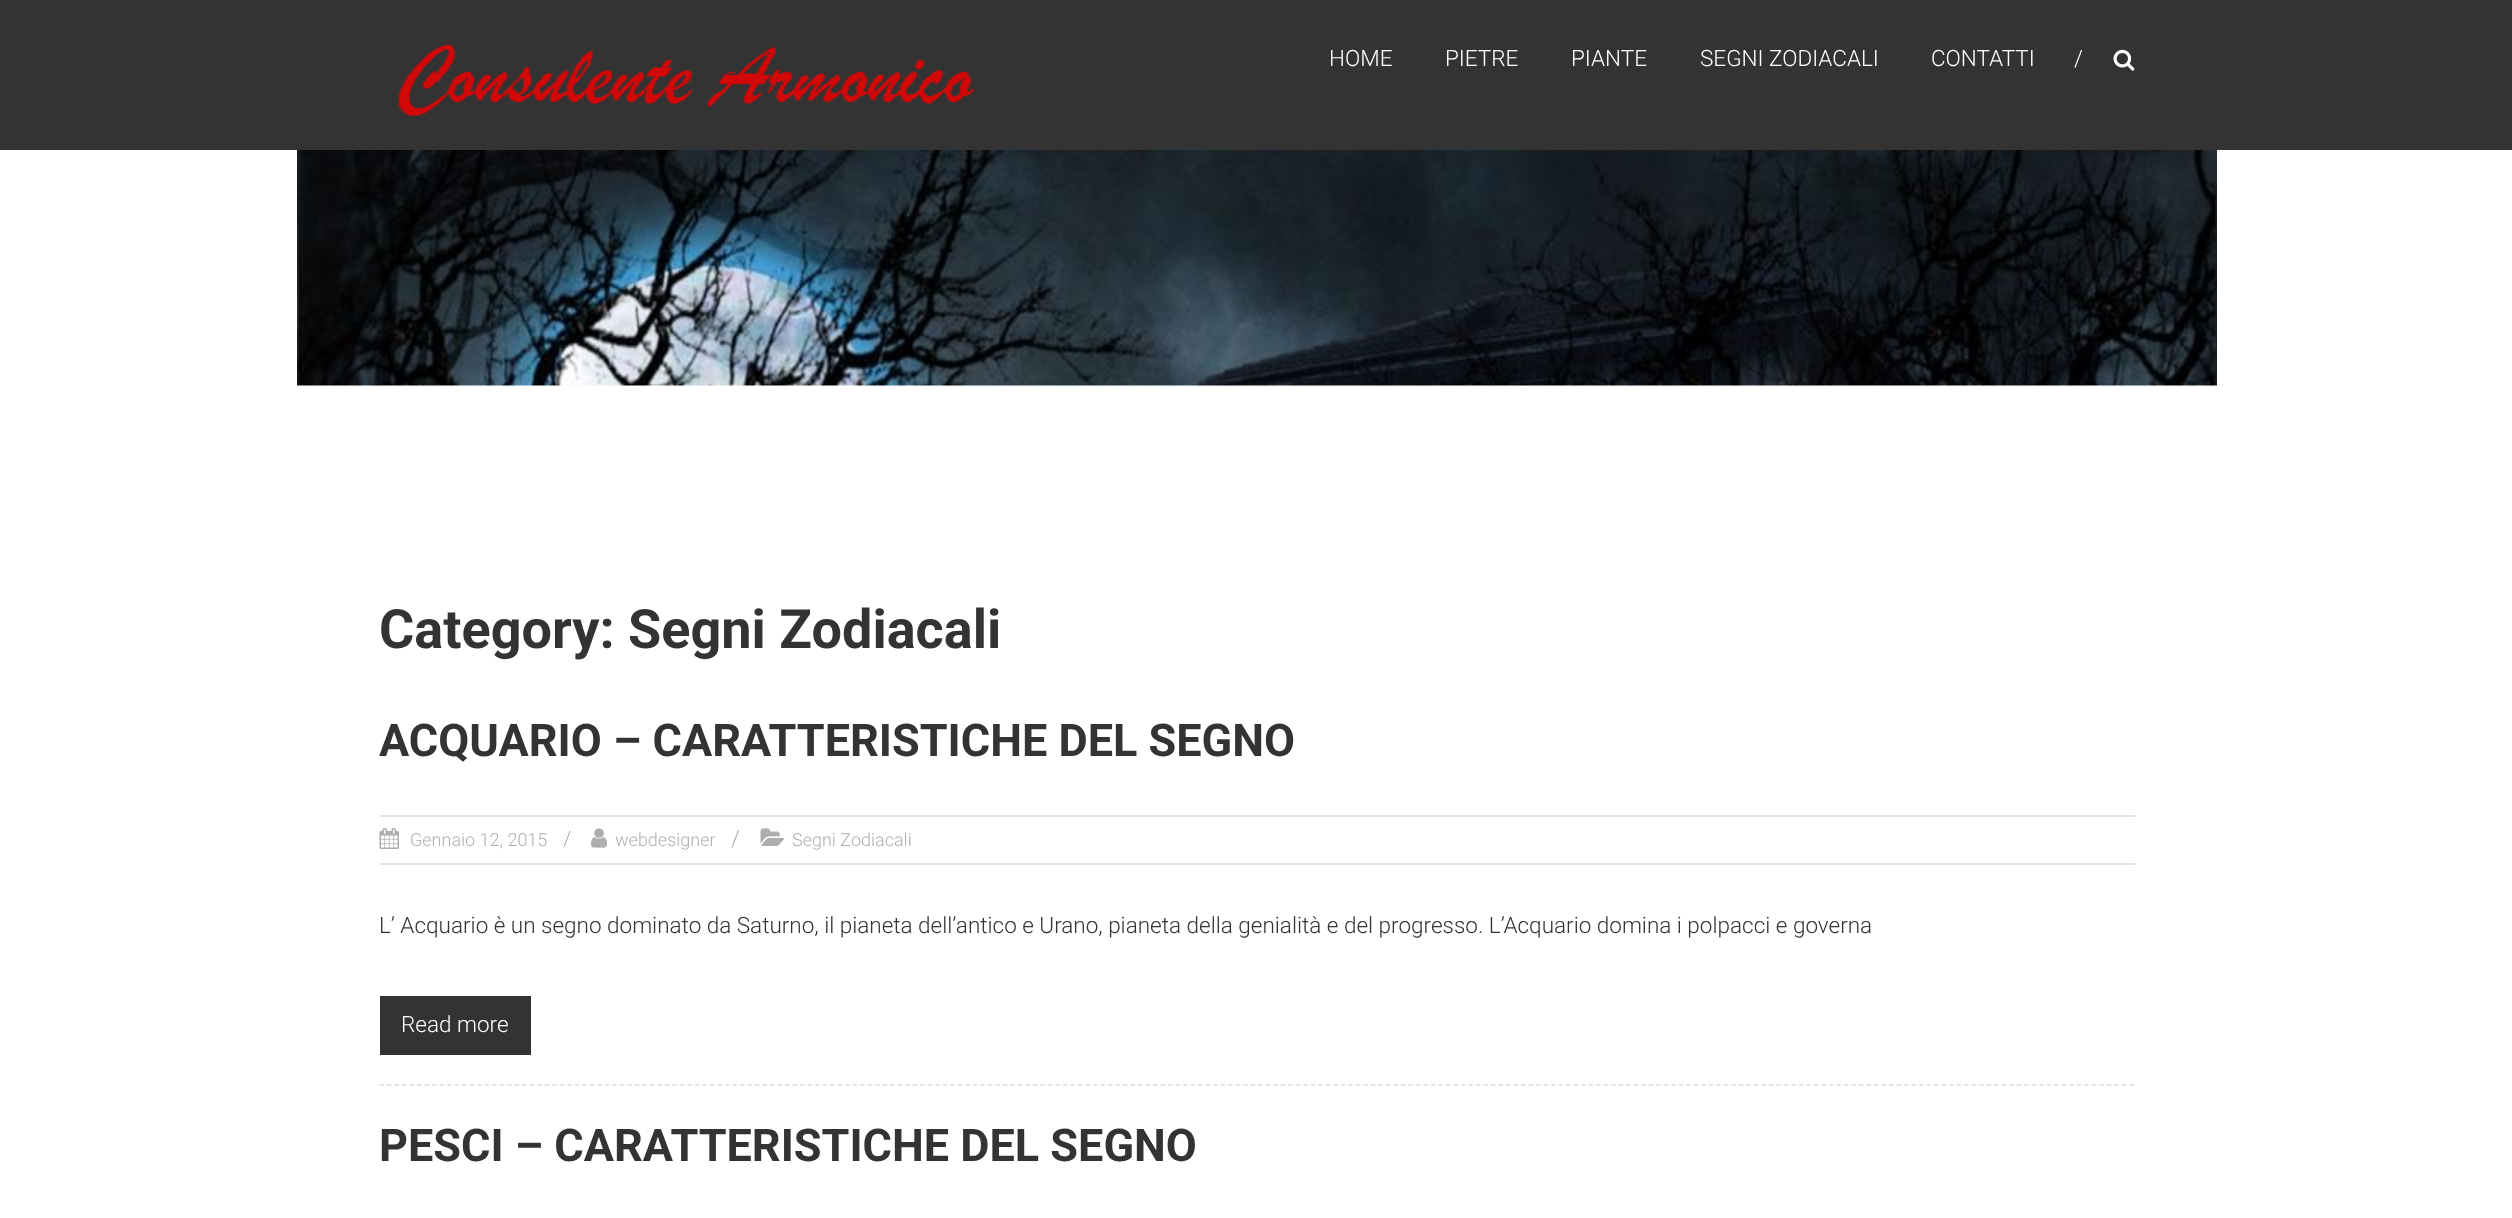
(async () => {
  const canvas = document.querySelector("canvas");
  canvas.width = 2512;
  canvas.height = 1218;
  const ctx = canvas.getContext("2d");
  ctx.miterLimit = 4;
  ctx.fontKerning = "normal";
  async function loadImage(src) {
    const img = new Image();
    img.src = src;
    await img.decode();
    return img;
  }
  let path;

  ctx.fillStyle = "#ffffff";
  ctx.fillRect(0, 0, 2512, 1218);
  ctx.fillStyle = "#333333";
  ctx.fillRect(0, 0, 2512, 150);
  ctx.drawImage(await loadImage("img/1.png"), 398, 44, 577, 72);
  ctx.drawImage(await loadImage("img/2.png"), 2113, 49, 22, 22);
  ctx.drawImage(await loadImage("img/3.png"), 297, 150, 1920, 236);
  path = new Path2D("M379.5 1085H2134.5");
  ctx.strokeStyle = "#dddddd";
  ctx.lineWidth = 1.5;
  ctx.setLineDash([4.5, 3.01]);
  ctx.stroke(path);
  ctx.fillStyle = "#e1e1e1";
  ctx.fillRect(380, 815, 1755, 2);
  ctx.fillRect(380, 863, 1755, 2);
  ctx.drawImage(await loadImage("img/4.png"), 379, 828, 20, 21);
  ctx.drawImage(await loadImage("img/5.png"), 591, 828, 16, 20);
  ctx.drawImage(await loadImage("img/6.png"), 760, 828, 24, 18);
  ctx.fillStyle = "#333333";
  ctx.fillRect(380, 996, 151, 59);
  ctx.font = "300 22.5px Roboto";
  ctx.fillStyle = "#ffffff";
  for (const [text, x, y] of [
    ["HOME", 1329, 66],
    ["PIETRE", 1445, 66],
    ["PIANTE", 1571, 66],
    ["SEGNI ZODIACALI", 1700, 66],
    ["CONTATTI", 1931, 66],
    ["/", 2074, 66],
  ]) {
    ctx.fillText(text, x, y);
  }
  ctx.font = "bold 54px Roboto";
  ctx.fillStyle = "#333333";
  ctx.fillText("Category: Segni Zodiacali", 379, 648);
  ctx.font = "bold 45px Roboto";
  ctx.fillText("ACQUARIO – CARATTERISTICHE DEL SEGNO", 379, 756);
  ctx.font = "300 18px Roboto";
  ctx.fillStyle = "#aeaeae";
  ctx.fillText("Gennaio 12, 2015", 410, 846);
  ctx.font = "300 21px Roboto";
  ctx.fillText("/", 563, 846);
  ctx.font = "300 18px Roboto";
  ctx.fillText("webdesigner", 615, 846);
  ctx.font = "300 22.5px Roboto";
  ctx.fillText("/", 731, 846);
  ctx.font = "300 18px Roboto";
  ctx.fillText("Segni Zodiacali", 792, 846);
  ctx.font = "300 22.5px Roboto";
  ctx.fillStyle = "#333333";
  ctx.fillText("L’ Acquario è un segno dominato da Saturno, il pianeta dell’antico e Urano, pianeta della genialità e del progresso. L’Acquario domina i polpacci e governa", 379, 933);
  ctx.fillStyle = "#ffffff";
  ctx.fillText("Read more", 401, 1032);
  ctx.font = "bold 45px Roboto";
  ctx.fillStyle = "#333333";
  ctx.fillText("PESCI – CARATTERISTICHE DEL SEGNO", 379, 1161);
})();
